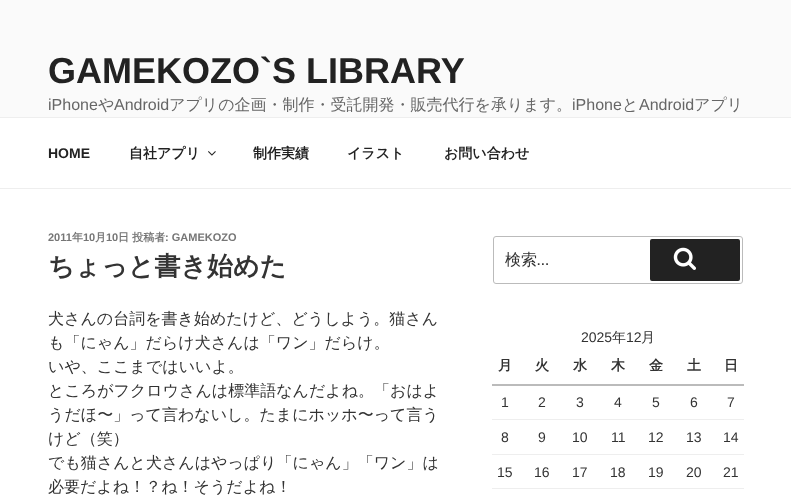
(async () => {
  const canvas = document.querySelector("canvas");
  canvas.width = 791;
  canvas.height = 495;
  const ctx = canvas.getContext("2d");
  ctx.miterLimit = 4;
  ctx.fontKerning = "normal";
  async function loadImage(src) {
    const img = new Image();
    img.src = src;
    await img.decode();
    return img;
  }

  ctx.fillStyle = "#ffffff";
  ctx.fillRect(0, 0, 791, 495);
  for (const [x, y, w, h, color] of [
    [0, 0, 791, 117, "#fafafa"],
    [0, 117, 791, 1, "#eeeeee"],
    [0, 188, 791, 1, "#eeeeee"],
  ]) {
    ctx.fillStyle = color;
    ctx.fillRect(x, y, w, h);
  }
  ctx.drawImage(await loadImage("img/1.png"), 208, 151, 8, 5);
  ctx.beginPath();
  ctx.roundRect(493.5, 236.5, 249, 47, 2.5);
  ctx.strokeStyle = "#bbbbbb";
  ctx.stroke();
  ctx.fillStyle = "#222222";
  ctx.beginPath();
  ctx.roundRect(650, 239, 90, 42, 2);
  ctx.fill();
  ctx.drawImage(await loadImage("img/2.png"), 673, 247, 23, 23);
  for (const [x, y, w, h, color] of [
    [492, 384, 252, 2, "#bbbbbb"],
    [492, 419, 252, 1, "#eeeeee"],
    [492, 454, 252, 1, "#eeeeee"],
    [492, 488, 252, 1, "#eeeeee"],
  ]) {
    ctx.fillStyle = color;
    ctx.fillRect(x, y, w, h);
  }
  ctx.font = "bold 36px Liberation Sans";
  ctx.fillStyle = "#222222";
  ctx.fillText("GAMEKOZO`S LIBRARY", 48, 83);
  ctx.font = "16px Liberation Sans";
  ctx.fillStyle = "#666666";
  ctx.fillText("iPhone", 48, 110);
  ctx.font = "500 16px WenQuanYi Zen Hei";
  ctx.fillText("や", 98, 110);
  ctx.font = "16px Liberation Sans";
  ctx.fillText("Android", 114, 110);
  ctx.font = "500 16px WenQuanYi Zen Hei";
  ctx.fillText("アプリの企画・制作・受託開発・販売代行を承ります。", 169, 110);
  ctx.font = "16px Liberation Sans";
  ctx.fillText("iPhone", 572, 110);
  ctx.font = "500 16px WenQuanYi Zen Hei";
  ctx.fillText("と", 622, 110);
  ctx.font = "16px Liberation Sans";
  ctx.fillText("Android", 639, 110);
  ctx.font = "500 16px WenQuanYi Zen Hei";
  ctx.fillText("アプリ", 694, 110);
  ctx.font = "bold 14px Liberation Sans";
  ctx.fillStyle = "#222222";
  ctx.fillText("HOME", 48, 158);
  ctx.font = "bold 14px WenQuanYi Zen Hei";
  for (const [text, x, y] of [
    ["自社アプリ", 129, 158],
    ["制作実績", 253, 158],
    ["イラスト", 347, 158],
    ["お問い合わせ", 444, 158],
  ]) {
    ctx.fillText(text, x, y);
  }
  ctx.font = "bold 11px Liberation Sans";
  ctx.fillStyle = "#767676";
  ctx.fillText("2011", 48, 241);
  ctx.font = "bold 11px WenQuanYi Zen Hei";
  ctx.fillText("年", 72, 241);
  ctx.font = "bold 11px Liberation Sans";
  ctx.fillText("10", 83, 241);
  ctx.font = "bold 11px WenQuanYi Zen Hei";
  ctx.fillText("月", 95, 241);
  ctx.font = "bold 11px Liberation Sans";
  ctx.fillText("10", 106, 241);
  ctx.font = "bold 11px WenQuanYi Zen Hei";
  ctx.fillText("日 投稿者", 118, 241);
  ctx.font = "bold 11px Liberation Sans";
  ctx.fillText(": GAMEKOZO", 165, 241);
  ctx.font = "bold 26px WenQuanYi Zen Hei";
  ctx.fillStyle = "#333333";
  ctx.fillText("ちょっと書き始めた", 48, 275);
  ctx.font = "500 16px WenQuanYi Zen Hei";
  for (const [text, x, y] of [
    ["犬さんの台詞を書き始めたけど、どうしよう。猫さん", 48, 324],
    ["も「にゃん」だらけ犬さんは「ワン」だらけ。", 48, 348],
    ["いや、ここまではいいよ。", 48, 372],
    ["ところがフクロウさんは標準語なんだよね。「おはよ", 48, 396],
    ["うだほ〜」って言わないし。たまにホッホ〜って言う", 48, 420],
    ["けど（笑）", 48, 444],
    ["でも猫さんと犬さんはやっぱり「にゃん」「ワン」は", 48, 468],
    ["必要だよね！？ね！そうだよね！", 48, 492],
    ["検索", 505, 265],
  ]) {
    ctx.fillText(text, x, y);
  }
  ctx.font = "16px Libre Franklin";
  ctx.fillText("…", 537, 265);
  ctx.font = "14px Liberation Sans";
  ctx.fillText("2025", 581, 342);
  ctx.font = "500 14px WenQuanYi Zen Hei";
  ctx.fillText("年", 612, 342);
  ctx.font = "14px Liberation Sans";
  ctx.fillText("12", 626, 342);
  ctx.font = "500 14px WenQuanYi Zen Hei";
  ctx.fillText("月", 641, 342);
  ctx.font = "bold 14px WenQuanYi Zen Hei";
  for (const [text, x, y] of [
    ["月", 498, 370],
    ["火", 535, 370],
    ["水", 573, 370],
    ["木", 611, 370],
    ["金", 649, 370],
    ["土", 687, 370],
    ["日", 724, 370],
  ]) {
    ctx.fillText(text, x, y);
  }
  ctx.font = "14px Liberation Sans";
  for (const [text, x, y] of [
    ["1", 501, 407],
    ["2", 538, 407],
    ["3", 576, 407],
    ["4", 614, 407],
    ["5", 652, 407],
    ["6", 690, 407],
    ["7", 727, 407],
    ["8", 501, 442],
    ["9", 538, 442],
    ["10", 572, 442],
    ["11", 611, 442],
    ["12", 648, 442],
    ["13", 686, 442],
    ["14", 723, 442],
    ["15", 497, 477],
    ["16", 534, 477],
    ["17", 572, 477],
    ["18", 610, 477],
    ["19", 648, 477],
    ["20", 686, 477],
    ["21", 723, 477],
  ]) {
    ctx.fillText(text, x, y);
  }
})();
